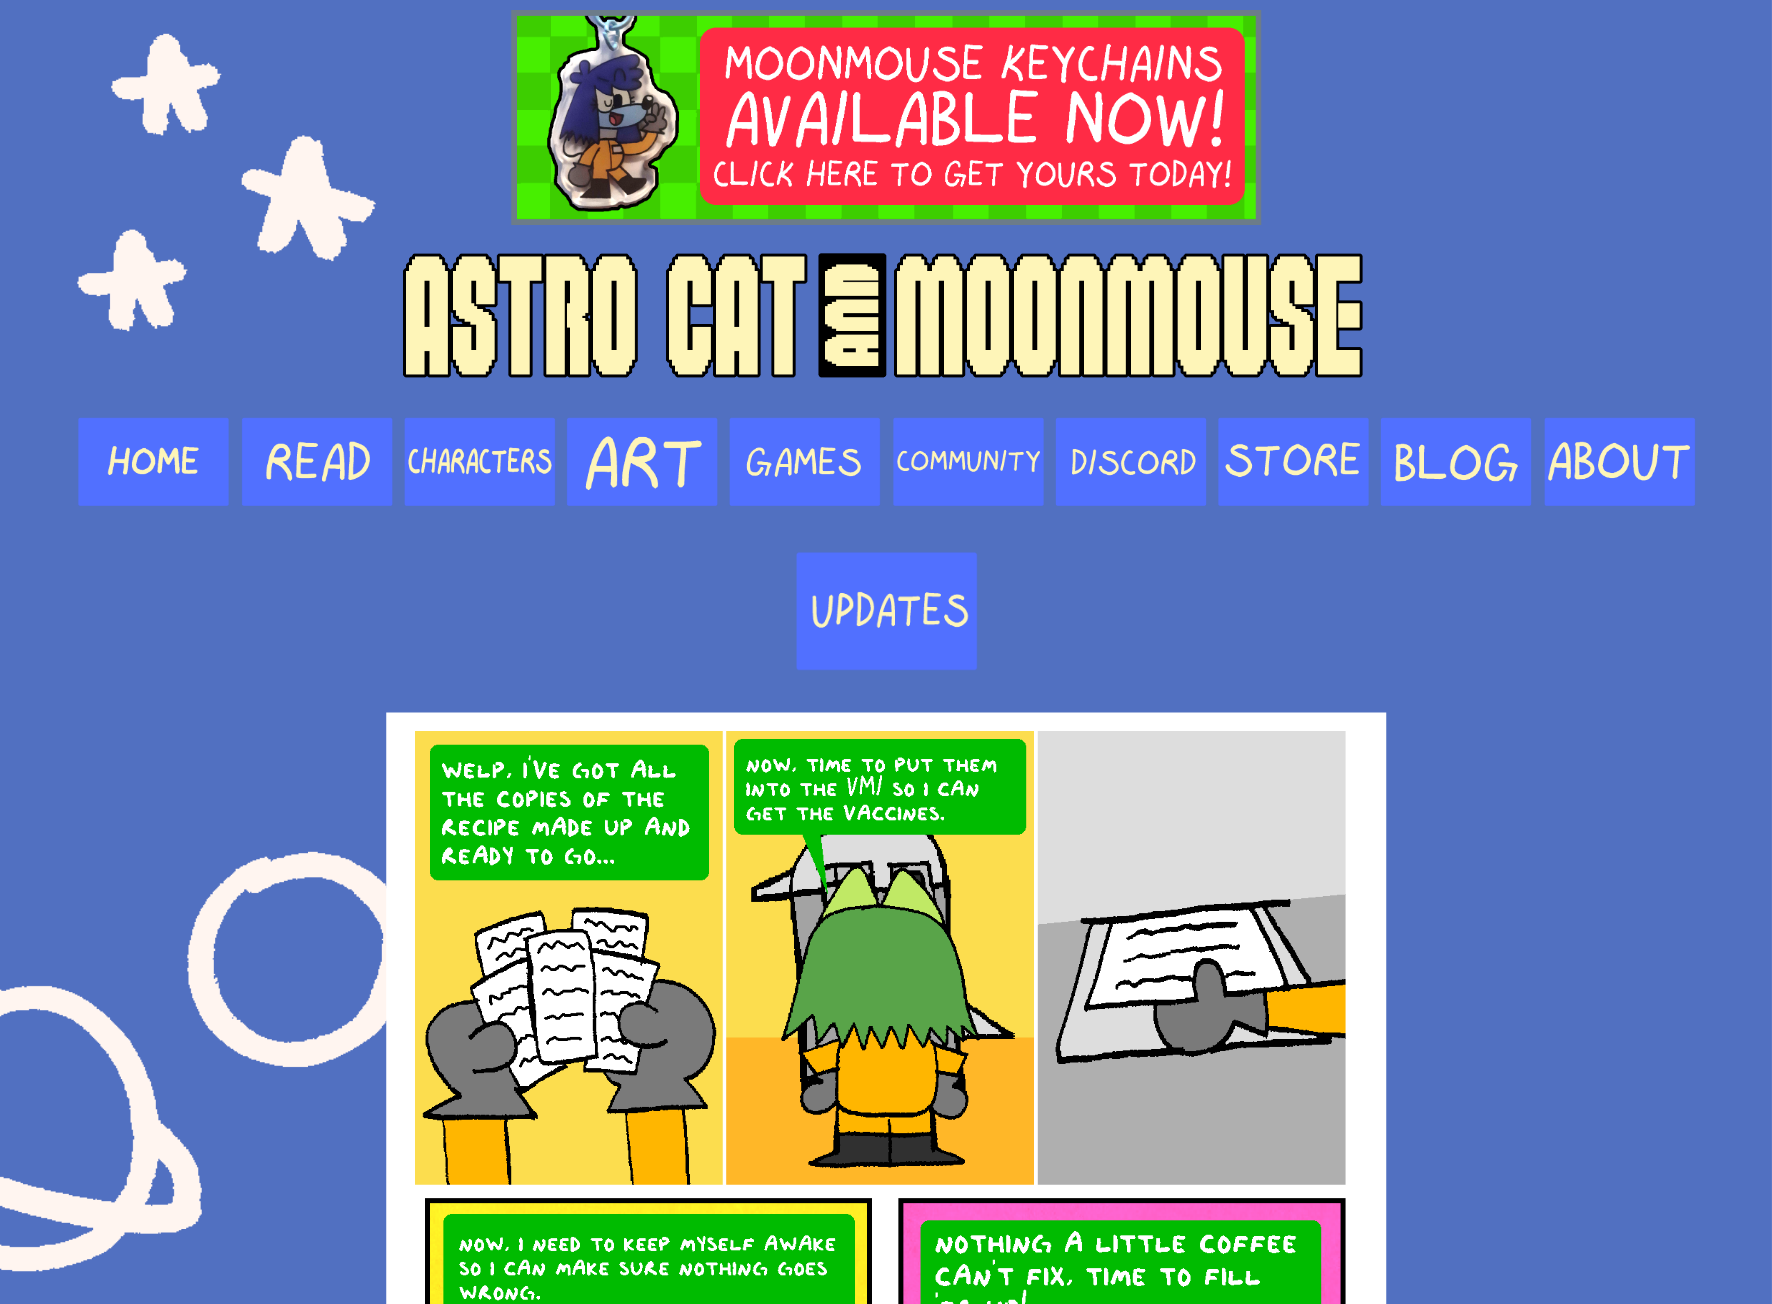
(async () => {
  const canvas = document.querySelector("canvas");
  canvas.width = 1772;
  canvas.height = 1304;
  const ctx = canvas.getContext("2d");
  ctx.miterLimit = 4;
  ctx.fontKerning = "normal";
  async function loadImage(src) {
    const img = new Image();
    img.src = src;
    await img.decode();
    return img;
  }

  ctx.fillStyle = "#ffffff";
  ctx.fillRect(0, 0, 1772, 1304);
  ctx.drawImage(await loadImage("img/1.png"), 0, 0, 1772, 1304);
  ctx.drawImage(await loadImage("img/2.png"), 511, 10, 751, 215);
  ctx.drawImage(await loadImage("img/3.png"), 403, 253, 960, 125);
  ctx.drawImage(await loadImage("img/4.png"), 78, 417, 151, 89);
  ctx.drawImage(await loadImage("img/5.png"), 241, 417, 152, 89);
  ctx.drawImage(await loadImage("img/6.png"), 404, 417, 152, 89);
  ctx.drawImage(await loadImage("img/7.png"), 566, 417, 152, 89);
  ctx.drawImage(await loadImage("img/8.png"), 729, 417, 152, 89);
  ctx.drawImage(await loadImage("img/9.png"), 893, 417, 151, 89);
  ctx.drawImage(await loadImage("img/10.png"), 1055, 417, 152, 89);
  ctx.drawImage(await loadImage("img/11.png"), 1218, 417, 151, 89);
  ctx.drawImage(await loadImage("img/12.png"), 1380, 417, 152, 89);
  ctx.drawImage(await loadImage("img/13.png"), 1544, 417, 152, 89);
  ctx.drawImage(await loadImage("img/14.png"), 796, 552, 182, 119);
  ctx.drawImage(await loadImage("img/15.png"), 386, 712, 1001, 592);
})();
